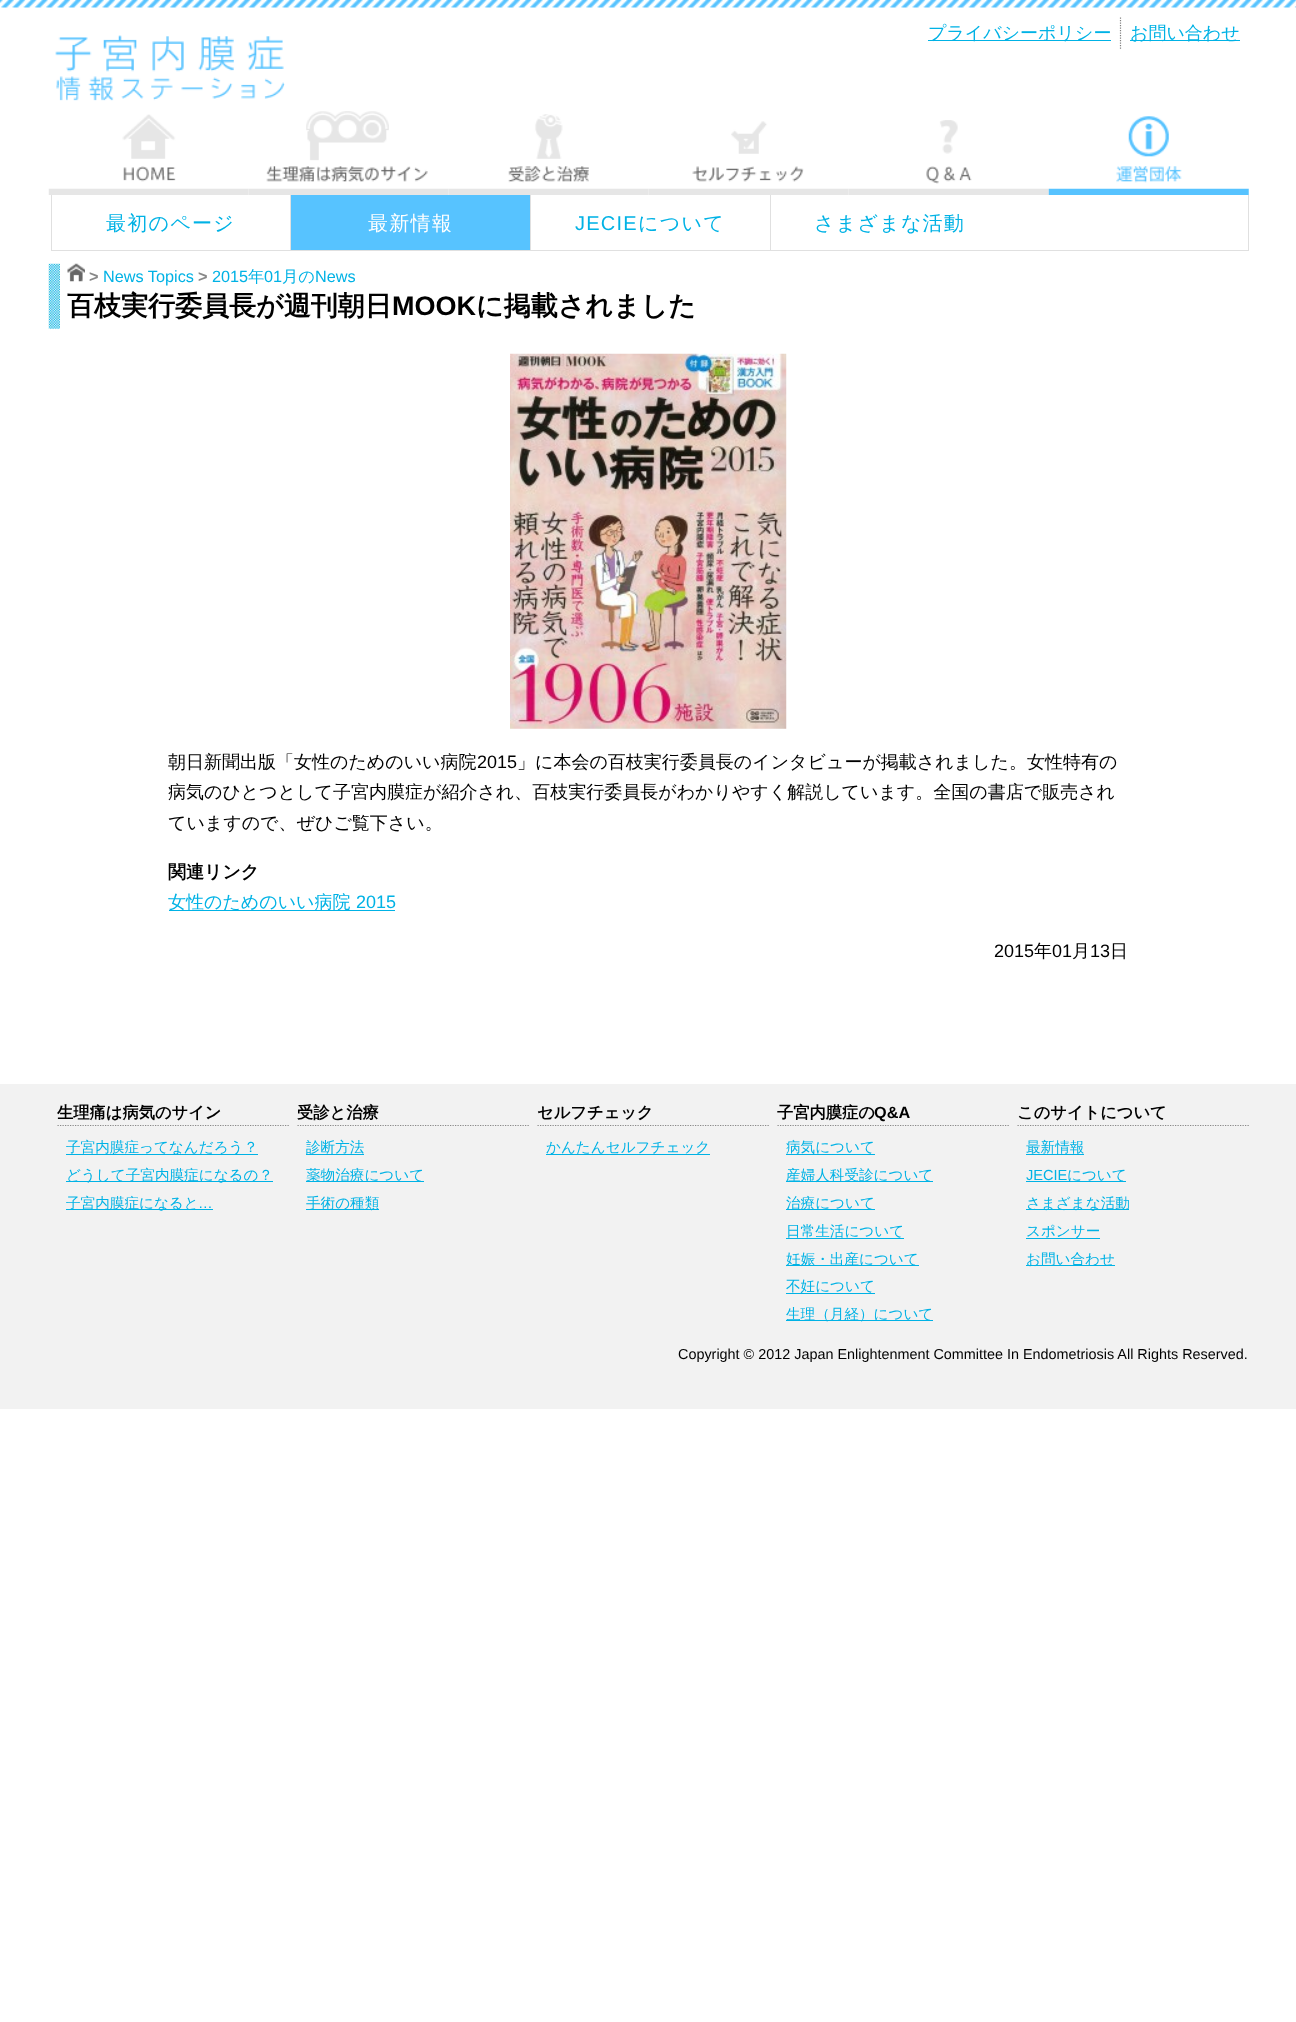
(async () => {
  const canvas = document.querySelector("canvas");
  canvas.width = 1296;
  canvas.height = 2022;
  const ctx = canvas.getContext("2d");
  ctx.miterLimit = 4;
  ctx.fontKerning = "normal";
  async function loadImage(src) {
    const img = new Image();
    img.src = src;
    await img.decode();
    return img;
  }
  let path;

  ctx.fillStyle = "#ffffff";
  ctx.fillRect(0, 0, 1296, 2022);
  ctx.drawImage(await loadImage("img/1.png"), 0, 0, 1296, 8);
  ctx.fillStyle = "#00b2e5";
  ctx.fillRect(928, 40, 183, 1);
  path = new Path2D("M1120.5 17.5V49");
  ctx.strokeStyle = "#808080";
  ctx.lineWidth = 1.2;
  ctx.setLineDash([1.25, 1.25]);
  ctx.stroke(path);
  ctx.fillRect(1130, 40, 110, 1);
  ctx.drawImage(await loadImage("img/2.png"), 55, 35, 230, 66);
  ctx.drawImage(await loadImage("img/3.png"), 48, 114, 201, 81);
  ctx.drawImage(await loadImage("img/4.png"), 249, 111, 200, 84);
  ctx.drawImage(await loadImage("img/5.png"), 449, 114, 200, 81);
  ctx.drawImage(await loadImage("img/6.png"), 649, 121, 200, 74);
  ctx.drawImage(await loadImage("img/7.png"), 849, 120, 200, 75);
  ctx.drawImage(await loadImage("img/8.png"), 1048, 116, 201, 79);
  for (const [x, y, w, h, color] of [
    [1248, 195, 1, 56, "#e0e0e0"],
    [51, 250, 1198, 1, "#e0e0e0"],
    [51, 195, 1, 56, "#e0e0e0"],
    [290, 195, 1, 55, "#e0e0e0"],
    [291, 195, 239, 55, "#57c3ff"],
    [530, 195, 1, 55, "#e0e0e0"],
    [770, 195, 1, 55, "#e0e0e0"],
  ]) {
    ctx.fillStyle = color;
    ctx.fillRect(x, y, w, h);
  }
  ctx.drawImage(await loadImage("img/9.png"), 48, 263, 12, 66);
  ctx.drawImage(await loadImage("img/10.png"), 67, 263, 18, 19);
  ctx.drawImage(await loadImage("img/11.png"), 510, 353, 277, 376);
  ctx.fillStyle = "#00b2e5";
  ctx.fillRect(169, 910, 226, 1);
  ctx.fillStyle = "#f2f2f2";
  ctx.fillRect(0, 1084, 1296, 325);
  path = new Path2D("M57.5 1125.5H289");
  ctx.strokeStyle = "#888888";
  ctx.stroke(path);
  for (const [x, y, w, h, color] of [
    [66, 1154, 192, 1, "#00b2e5"],
    [66, 1181, 207, 1, "#00b2e5"],
    [66, 1209, 147, 1, "#00b2e5"],
  ]) {
    ctx.fillStyle = color;
    ctx.fillRect(x, y, w, h);
  }
  path = new Path2D("M297.5 1125.5H529");
  ctx.stroke(path);
  for (const [x, y, w, h, color] of [
    [306, 1154, 58, 1, "#00b2e5"],
    [306, 1181, 118, 1, "#00b2e5"],
    [306, 1209, 73, 1, "#00b2e5"],
  ]) {
    ctx.fillStyle = color;
    ctx.fillRect(x, y, w, h);
  }
  path = new Path2D("M537.5 1125.5H769");
  ctx.stroke(path);
  ctx.fillRect(546, 1154, 164, 1);
  path = new Path2D("M777.5 1125.5H1009");
  ctx.stroke(path);
  for (const [x, y, w, h, color] of [
    [786, 1154, 89, 1, "#00b2e5"],
    [786, 1181, 147, 1, "#00b2e5"],
    [786, 1209, 89, 1, "#00b2e5"],
    [786, 1238, 118, 1, "#00b2e5"],
    [786, 1265, 133, 1, "#00b2e5"],
    [786, 1293, 89, 1, "#00b2e5"],
    [786, 1320, 147, 1, "#00b2e5"],
  ]) {
    ctx.fillStyle = color;
    ctx.fillRect(x, y, w, h);
  }
  path = new Path2D("M1017.5 1125.5H1249");
  ctx.stroke(path);
  for (const [x, y, w, h, color] of [
    [1026, 1154, 58, 1, "#00b2e5"],
    [1026, 1181, 100, 1, "#00b2e5"],
    [1026, 1209, 103, 1, "#00b2e5"],
    [1026, 1238, 74, 1, "#00b2e5"],
    [1026, 1265, 89, 1, "#00b2e5"],
  ]) {
    ctx.fillStyle = color;
    ctx.fillRect(x, y, w, h);
  }
  ctx.font = "500 18px WenQuanYi Zen Hei";
  ctx.fillText("プライバシーポリシー", 928, 39);
  ctx.fillText("お問い合わせ", 1130, 39);
  ctx.letterSpacing = "1.25px";
  ctx.font = "500 20px WenQuanYi Zen Hei";
  ctx.fillText("最初のページ", 106, 230);
  ctx.fillStyle = "#ffffff";
  ctx.fillText("最新情報", 368, 230);
  ctx.font = "20px Liberation Sans";
  ctx.fillStyle = "#00b2e5";
  ctx.fillText("JECIE", 575, 230);
  ctx.font = "500 20px WenQuanYi Zen Hei";
  ctx.fillText("について", 638, 230);
  ctx.fillText("さまざまな活動", 814, 230);
  ctx.letterSpacing = "0px";
  ctx.font = "bold 16.25px Liberation Sans";
  ctx.fillStyle = "#888888";
  ctx.fillText(">", 89, 282);
  ctx.font = "16.25px Liberation Sans";
  ctx.fillStyle = "#00b2e5";
  ctx.fillText("News Topics", 103, 282);
  ctx.font = "bold 16.25px Liberation Sans";
  ctx.fillStyle = "#888888";
  ctx.fillText(">", 198, 282);
  ctx.font = "16.25px Liberation Sans";
  ctx.fillStyle = "#00b2e5";
  ctx.fillText("2015", 212, 282);
  ctx.font = "500 16.25px WenQuanYi Zen Hei";
  ctx.fillText("年", 248, 282);
  ctx.font = "16.25px Liberation Sans";
  ctx.fillText("01", 264, 282);
  ctx.font = "500 16.25px WenQuanYi Zen Hei";
  ctx.fillText("月の", 282, 282);
  ctx.font = "16.25px Liberation Sans";
  ctx.fillText("News", 315, 282);
  ctx.font = "bold 27px WenQuanYi Zen Hei";
  ctx.fillStyle = "#000000";
  ctx.fillText("百枝実行委員長が週刊朝日", 67, 315);
  ctx.font = "bold 27px Liberation Sans";
  ctx.fillText("MOOK", 392, 315);
  ctx.font = "bold 27px WenQuanYi Zen Hei";
  ctx.fillText("に掲載されました", 476, 315);
  ctx.font = "500 18px WenQuanYi Zen Hei";
  ctx.fillText("朝日新聞出版「女性のためのいい病院", 168, 768);
  ctx.font = "18px Liberation Sans";
  ctx.fillText("2015", 477, 768);
  ctx.font = "500 18px WenQuanYi Zen Hei";
  for (const [text, x, y] of [
    ["」に本会の百枝実行委員長のインタビューが掲載されました。女性特有の", 517, 768],
    ["病気のひとつとして子宮内膜症が紹介され、百枝実行委員長がわかりやすく解説しています。全国の書店で販売され", 168, 798],
    ["ていますので、ぜひご覧下さい。", 168, 829],
  ]) {
    ctx.fillText(text, x, y);
  }
  ctx.font = "bold 18px WenQuanYi Zen Hei";
  ctx.fillText("関連リンク", 168, 878);
  ctx.font = "500 18px WenQuanYi Zen Hei";
  ctx.fillStyle = "#00b2e5";
  ctx.fillText("女性のためのいい病院", 168, 908);
  ctx.font = "18px Liberation Sans";
  ctx.fillText("2015", 356, 908);
  ctx.fillStyle = "#000000";
  ctx.fillText("2015", 994, 957);
  ctx.font = "500 18px WenQuanYi Zen Hei";
  ctx.fillText("年", 1034, 957);
  ctx.font = "18px Liberation Sans";
  ctx.fillText("01", 1052, 957);
  ctx.font = "500 18px WenQuanYi Zen Hei";
  ctx.fillText("月", 1072, 957);
  ctx.font = "18px Liberation Sans";
  ctx.fillText("13", 1090, 957);
  ctx.font = "500 18px WenQuanYi Zen Hei";
  ctx.fillText("日", 1110, 957);
  ctx.font = "bold 16.25px WenQuanYi Zen Hei";
  ctx.fillText("生理痛は病気のサイン", 57, 1118);
  ctx.font = "500 14.6px WenQuanYi Zen Hei";
  ctx.fillStyle = "#00b2e5";
  for (const [text, x, y] of [
    ["子宮内膜症ってなんだろう？", 66, 1152],
    ["どうして子宮内膜症になるの？", 66, 1180],
    ["子宮内膜症になると", 66, 1208],
  ]) {
    ctx.fillText(text, x, y);
  }
  ctx.font = "14.6px Liberation Sans";
  ctx.fillText("…", 198, 1208);
  ctx.font = "bold 16.25px WenQuanYi Zen Hei";
  ctx.fillStyle = "#000000";
  ctx.fillText("受診と治療", 297, 1118);
  ctx.font = "500 14.6px WenQuanYi Zen Hei";
  ctx.fillStyle = "#00b2e5";
  for (const [text, x, y] of [
    ["診断方法", 306, 1152],
    ["薬物治療について", 306, 1180],
    ["手術の種類", 306, 1208],
  ]) {
    ctx.fillText(text, x, y);
  }
  ctx.font = "bold 16.25px WenQuanYi Zen Hei";
  ctx.fillStyle = "#000000";
  ctx.fillText("セルフチェック", 537, 1118);
  ctx.font = "500 14.6px WenQuanYi Zen Hei";
  ctx.fillStyle = "#00b2e5";
  ctx.fillText("かんたんセルフチェック", 546, 1152);
  ctx.font = "bold 16.25px WenQuanYi Zen Hei";
  ctx.fillStyle = "#000000";
  ctx.fillText("子宮内膜症の", 777, 1118);
  ctx.font = "bold 16.25px Liberation Sans";
  ctx.fillText("Q&A", 874, 1118);
  ctx.font = "500 14.6px WenQuanYi Zen Hei";
  ctx.fillStyle = "#00b2e5";
  for (const [text, x, y] of [
    ["病気について", 786, 1152],
    ["産婦人科受診について", 786, 1180],
    ["治療について", 786, 1208],
    ["日常生活について", 786, 1236],
    ["妊娠・出産について", 786, 1264],
    ["不妊について", 786, 1291],
    ["生理（月経）について", 786, 1319],
  ]) {
    ctx.fillText(text, x, y);
  }
  ctx.font = "bold 16.25px WenQuanYi Zen Hei";
  ctx.fillStyle = "#000000";
  ctx.fillText("このサイトについて", 1017, 1118);
  ctx.font = "500 14.6px WenQuanYi Zen Hei";
  ctx.fillStyle = "#00b2e5";
  ctx.fillText("最新情報", 1026, 1152);
  ctx.font = "14.6px Liberation Sans";
  ctx.fillText("JECIE", 1026, 1180);
  ctx.font = "500 14.6px WenQuanYi Zen Hei";
  for (const [text, x, y] of [
    ["について", 1067, 1180],
    ["さまざまな活動", 1026, 1208],
    ["スポンサー", 1026, 1236],
    ["お問い合わせ", 1026, 1264],
  ]) {
    ctx.fillText(text, x, y);
  }
  ctx.font = "14.4px Liberation Sans";
  ctx.fillStyle = "#000000";
  ctx.fillText("Copyright © 2012 Japan Enlightenment Committee In Endometriosis All Rights Reserved.", 678, 1359);
})();
